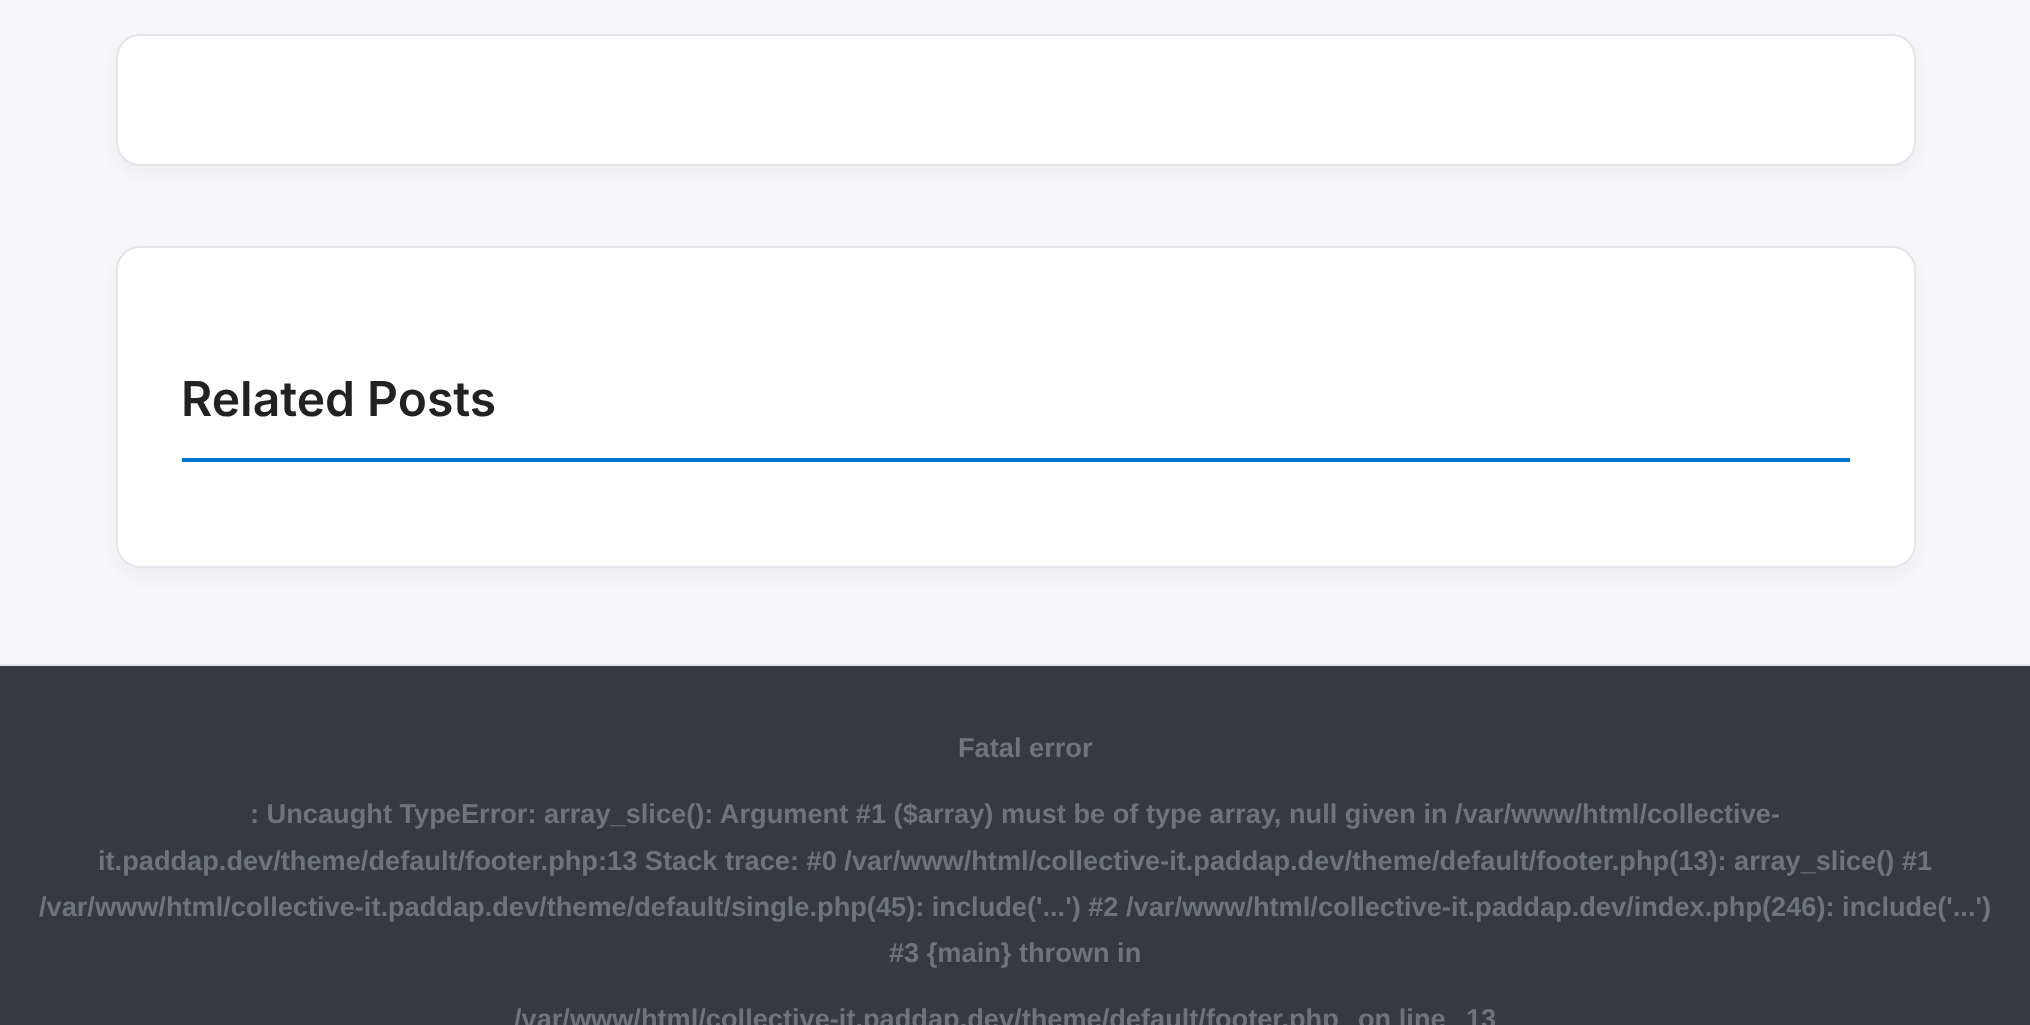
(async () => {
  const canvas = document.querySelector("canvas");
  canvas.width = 2030;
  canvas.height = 1025;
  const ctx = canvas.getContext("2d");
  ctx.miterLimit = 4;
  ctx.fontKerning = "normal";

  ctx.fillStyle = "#f9f9fb";
  ctx.fillRect(0, 0, 2030, 1025);
  ctx.fillStyle = "rgba(0, 0, 0, 0.06)";
  ctx.filter = "blur(12px)";
  ctx.beginPath();
  ctx.roundRect(116, 42, 1800, 132, 24);
  ctx.fill();
  ctx.filter = "none";
  ctx.fillStyle = "#ffffff";
  ctx.beginPath();
  ctx.roundRect(117, 35, 1798, 130, 23);
  ctx.fill();
  ctx.strokeStyle = "#e2e6ea";
  ctx.lineWidth = 2;
  ctx.stroke();
  ctx.fillStyle = "rgba(0, 0, 0, 0.06)";
  ctx.filter = "blur(12px)";
  ctx.beginPath();
  ctx.roundRect(116, 254, 1800, 322, 24);
  ctx.fill();
  ctx.filter = "none";
  ctx.fillStyle = "#ffffff";
  ctx.beginPath();
  ctx.roundRect(117, 247, 1798, 320, 23);
  ctx.fill();
  ctx.stroke();
  for (const [x, y, w, h, color] of [
    [182, 458, 1668, 4, "#0077cc"],
    [0, 666, 2030, 359, "#343a40"],
    [0, 664, 2030, 2, "#e2e6ea"],
  ]) {
    ctx.fillStyle = color;
    ctx.fillRect(x, y, w, h);
  }
  ctx.font = "600 48px Inter";
  ctx.fillStyle = "#222222";
  ctx.fillText("Related Posts", 181, 416);
  ctx.font = "bold 27.2px Liberation Sans";
  ctx.fillStyle = "#6c757d";
  for (const [text, x, y] of [
    ["Fatal error", 958, 757],
    [": Uncaught TypeError: array_slice(): Argument #1 ($array) must be of type array, null given in /var/www/html/collective-", 250, 823],
    ["it.paddap.dev/theme/default/footer.php:13 Stack trace: #0 /var/www/html/collective-it.paddap.dev/theme/default/footer.php(13): array_slice() #1", 98, 870],
    ["/var/www/html/collective-it.paddap.dev/theme/default/single.php(45): include('...') #2 /var/www/html/collective-it.paddap.dev/index.php(246): include('...')", 39, 916],
    ["#3 {main} thrown in", 889, 962],
    ["/var/www/html/collective-it.paddap.dev/theme/default/footer.php", 514, 1028],
    ["on line", 1358, 1028],
    ["13", 1466, 1028],
  ]) {
    ctx.fillText(text, x, y);
  }
})();
